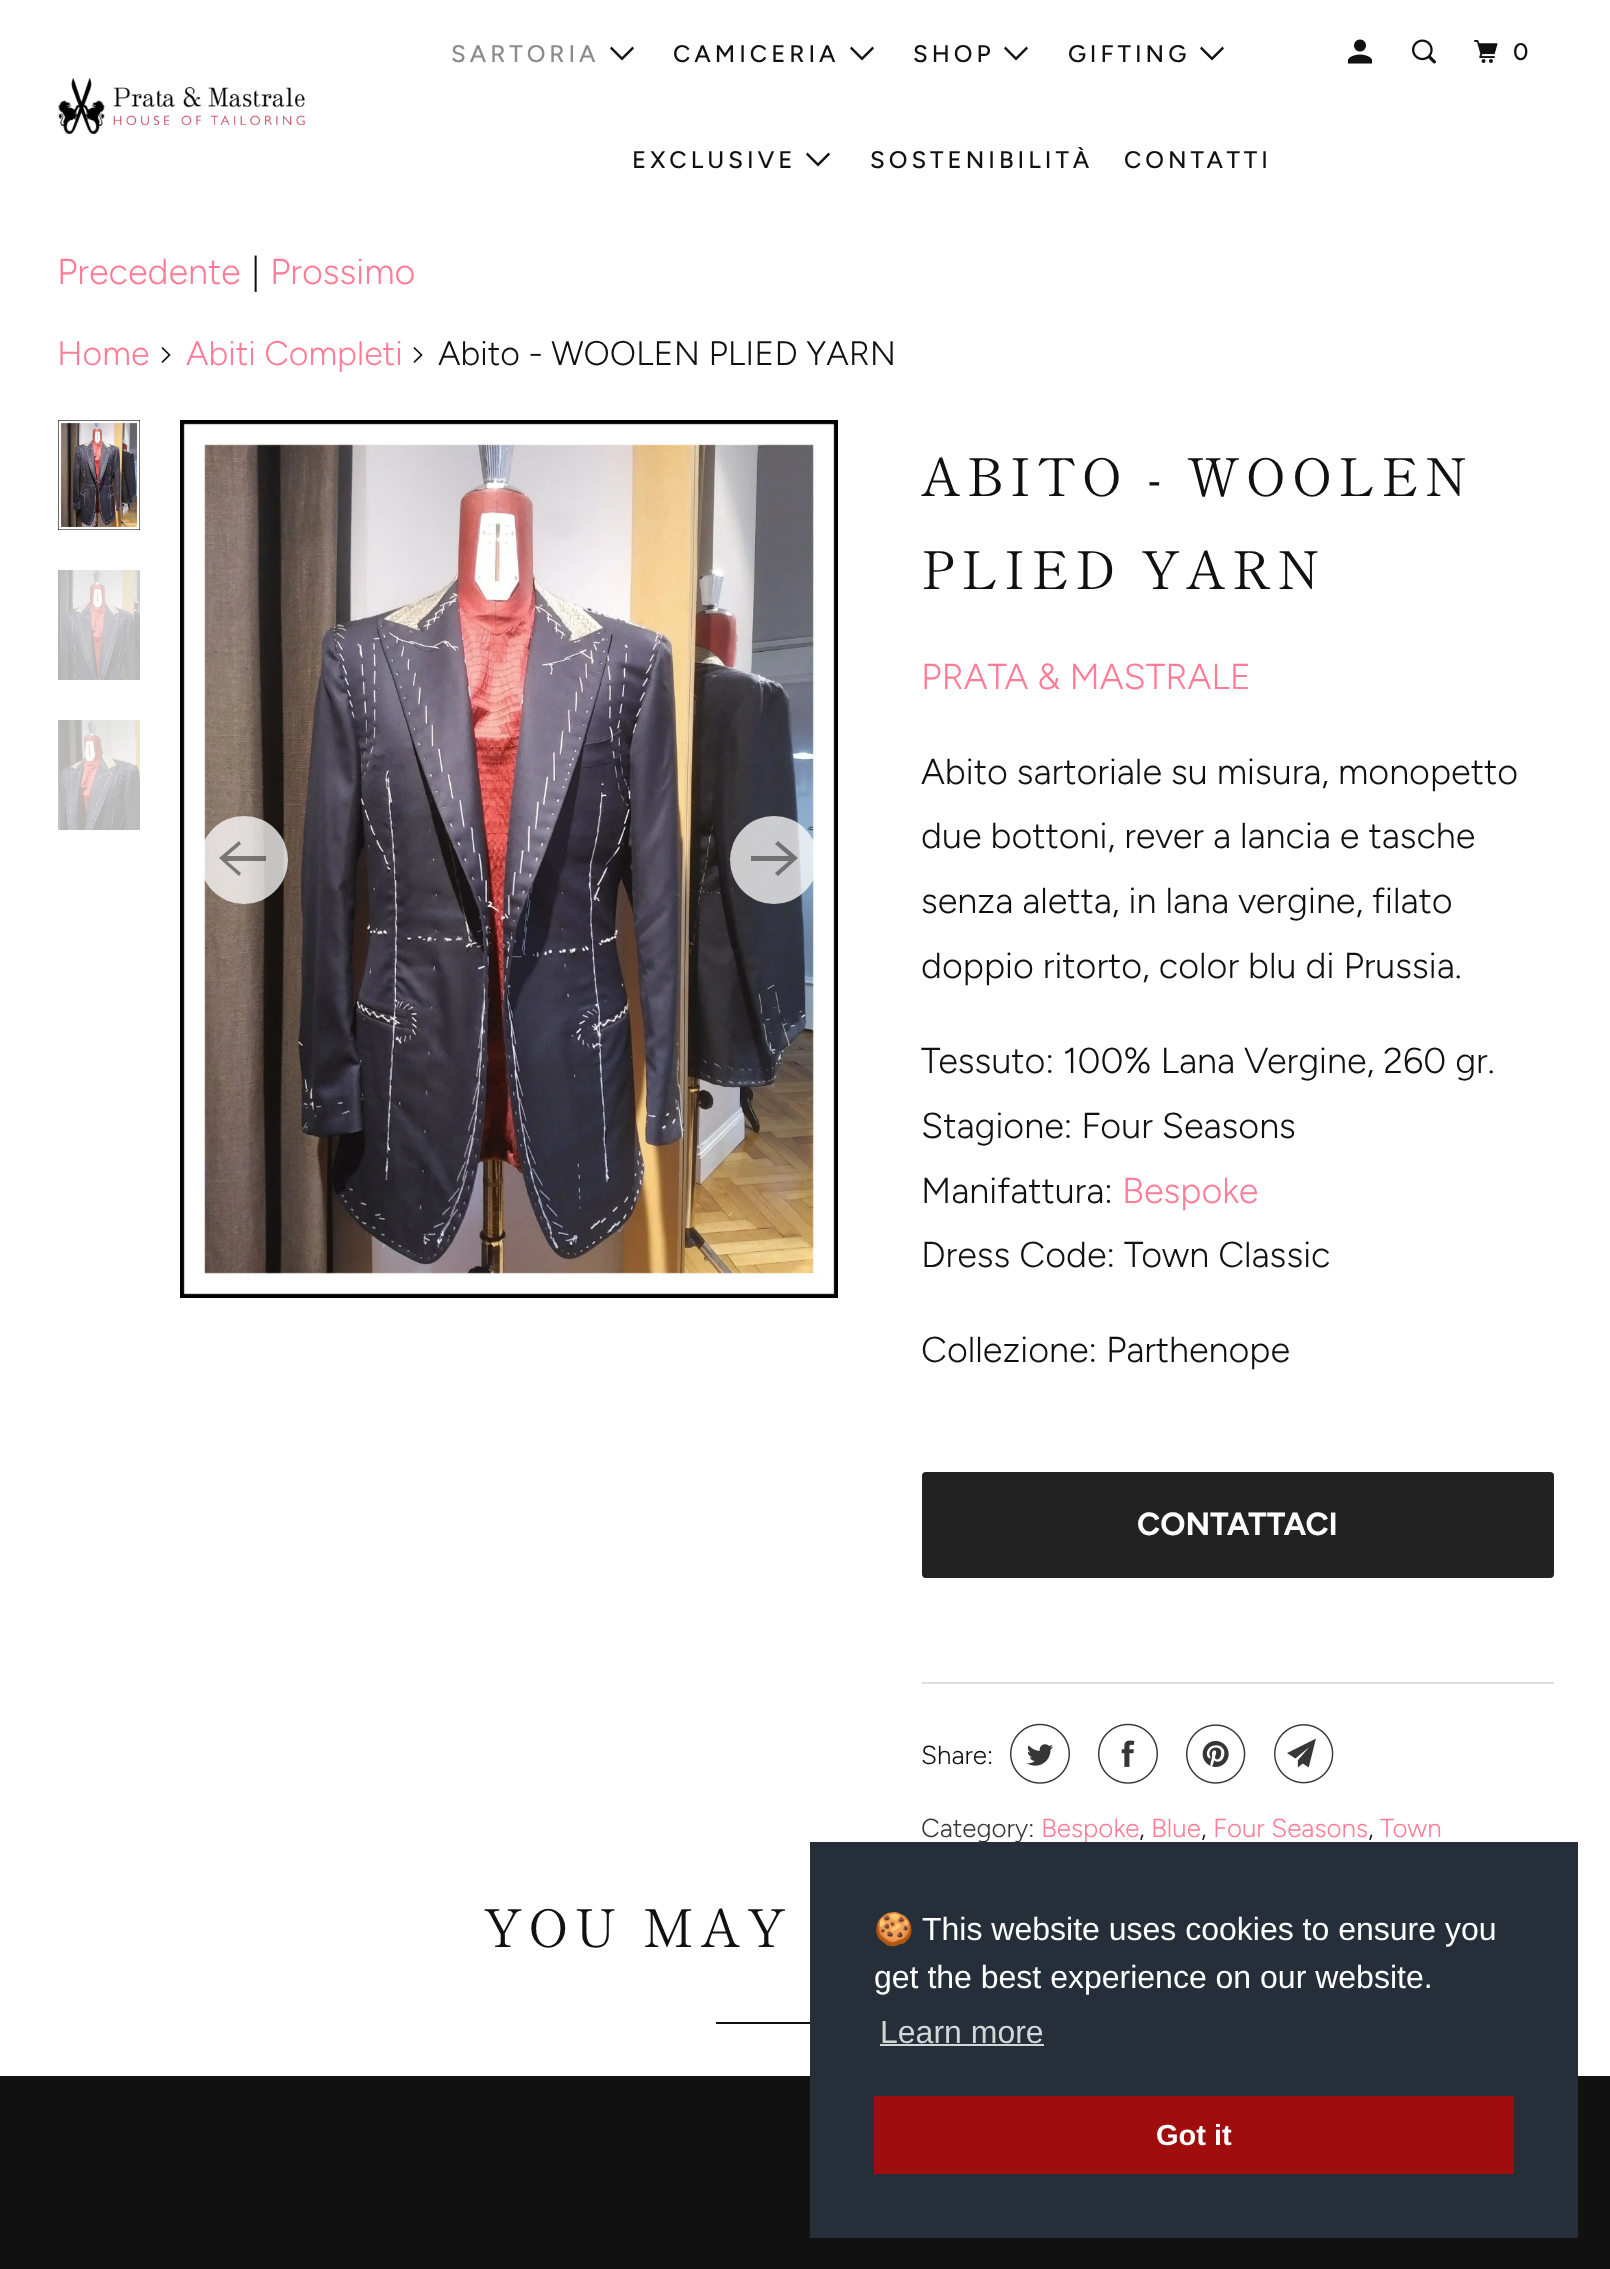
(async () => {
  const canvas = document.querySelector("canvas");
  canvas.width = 1610;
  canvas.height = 2269;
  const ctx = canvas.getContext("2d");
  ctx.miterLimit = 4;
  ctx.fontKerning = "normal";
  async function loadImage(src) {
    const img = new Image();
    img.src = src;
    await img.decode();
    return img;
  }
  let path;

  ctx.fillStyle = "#111111";
  ctx.fillRect(0, 0, 1610, 2269);
  ctx.fillStyle = "#ffffff";
  ctx.fillRect(0, 0, 1610, 2076);
  ctx.drawImage(await loadImage("img/1.png"), 58, 78, 247, 56);
  ctx.fillStyle = "#111111";
  path = new Path2D("M616 54.5L610 48.5L611.5 46.5L622 57L632.5 46.5L634 48.5L622 60.5Z");
  ctx.fill(path);
  path = new Path2D("M856 54.5L850 48.5L851.5 46.5L862 57L872.5 46.5L874 48.5L862 60.5Z");
  ctx.fill(path);
  path = new Path2D("M1010 54.5L1004 48.5L1005.5 46.5L1016 57L1026.5 46.5L1028 48.5L1016 60.5Z");
  ctx.fill(path);
  path = new Path2D("M1206 54.5L1200 48.5L1201.5 46.5L1212 57L1222.5 46.5L1224 48.5L1212 60.5Z");
  ctx.fill(path);
  path = new Path2D("M812 160.5L806 154.5L807.5 152.5L818 163L828.5 152.5L830 154.5L818 166.5Z");
  ctx.fill(path);
  ctx.drawImage(await loadImage("img/2.png"), 1348, 39, 24, 25);
  ctx.drawImage(await loadImage("img/3.png"), 1412, 39, 24, 25);
  ctx.drawImage(await loadImage("img/4.png"), 1474, 40, 24, 23);
  ctx.drawImage(await loadImage("img/5.png"), 161, 347, 10, 16);
  ctx.drawImage(await loadImage("img/5.png"), 413, 347, 10, 16);
  ctx.drawImage(await loadImage("img/6.png"), 58, 420, 82, 110);
  ctx.drawImage(await loadImage("img/7.png"), 58, 570, 82, 110);
  ctx.drawImage(await loadImage("img/8.png"), 58, 720, 82, 110);
  ctx.drawImage(await loadImage("img/9.png"), 180, 420, 658, 878);
  ctx.fillStyle = "rgba(255, 255, 255, 0.75)";
  ctx.beginPath();
  ctx.arc(244, 860, 44, 0, Math.PI * 2);
  ctx.fill();
  ctx.fillStyle = "rgba(51, 51, 51, 0.6)";
  path = new Path2D("M266 856H227L241 844L239 841L219 858L239 876L241 873L227 861H266Z");
  ctx.fill(path);
  ctx.fillStyle = "rgba(255, 255, 255, 0.75)";
  ctx.beginPath();
  ctx.arc(774, 860, 44, 0, Math.PI * 2);
  ctx.fill();
  ctx.fillStyle = "rgba(51, 51, 51, 0.6)";
  path = new Path2D("M751 861H789L775 873L778 876L798 858L778 841L775 844L789 856H751Z");
  ctx.fill(path);
  ctx.fillStyle = "#222222";
  ctx.beginPath();
  ctx.roundRect(922, 1472, 632, 106, 4);
  ctx.fill();
  ctx.fillStyle = "#dddddd";
  ctx.fillRect(922, 1682, 632, 2);
  ctx.drawImage(await loadImage("img/10.png"), 1010, 1723, 60, 61);
  ctx.drawImage(await loadImage("img/11.png"), 1098, 1723, 60, 61);
  ctx.drawImage(await loadImage("img/12.png"), 1186, 1724, 60, 60);
  ctx.drawImage(await loadImage("img/13.png"), 1274, 1724, 60, 60);
  ctx.fillStyle = "#111111";
  ctx.fillRect(716, 2022, 94, 2);
  ctx.letterSpacing = "4px";
  ctx.font = "500 24px Figtree";
  ctx.fillStyle = "#8b8b8b";
  ctx.fillText("SARTORIA", 451, 62);
  ctx.fillStyle = "#111111";
  for (const [text, x, y] of [
    ["CAMICERIA", 673, 62],
    ["SHOP", 913, 62],
    ["GIFTING", 1068, 62],
    ["EXCLUSIVE", 632, 168],
    ["SOSTENIBILITÀ", 870, 168],
    ["CONTATTI", 1124, 168],
    ["0", 1513, 60],
  ]) {
    ctx.fillText(text, x, y);
  }
  ctx.letterSpacing = "0px";
  ctx.font = "300 36px Figtree";
  ctx.fillStyle = "#ff7c97";
  ctx.fillText("Precedente", 57, 284);
  ctx.fillStyle = "#111111";
  ctx.fillText("|", 251, 284);
  ctx.fillStyle = "#ff7c97";
  ctx.fillText("Prossimo", 270, 284);
  ctx.font = "300 34px Figtree";
  ctx.fillText("Home", 57, 365);
  ctx.fillText("Abiti Completi", 186, 365);
  ctx.fillStyle = "#111111";
  ctx.fillText("Abito - WOOLEN PLIED YARN", 438, 365);
  ctx.letterSpacing = "6px";
  ctx.font = "52px Shippori Mincho";
  ctx.fillText("ABITO - WOOLEN", 921, 496);
  ctx.fillText("PLIED YARN", 921, 589);
  ctx.letterSpacing = "0px";
  ctx.font = "300 36px Figtree";
  ctx.fillStyle = "#ff7c97";
  ctx.fillText("PRATA & MASTRALE", 921, 689);
  ctx.fillStyle = "#111111";
  for (const [text, x, y] of [
    ["Abito sartoriale su misura, monopetto", 921, 784],
    ["due bottoni, rever a lancia e tasche", 921, 848],
    ["senza aletta, in lana vergine, filato", 921, 913],
    ["doppio ritorto, color blu di Prussia.", 921, 978],
    ["Tessuto: 100% Lana Vergine, 260 gr.", 921, 1073],
    ["Stagione: Four Seasons", 921, 1138],
    ["Manifattura:", 921, 1203],
  ]) {
    ctx.fillText(text, x, y);
  }
  ctx.fillStyle = "#ff7c97";
  ctx.fillText("Bespoke", 1122, 1203);
  ctx.fillStyle = "#111111";
  ctx.fillText("Dress Code: Town Classic", 921, 1267);
  ctx.fillText("Collezione: Parthenope", 921, 1362);
  ctx.font = "bold 32px Figtree";
  ctx.fillStyle = "#ffffff";
  ctx.fillText("CONTATTACI", 1137, 1535);
  ctx.font = "300 26px Figtree";
  ctx.fillStyle = "#111111";
  ctx.fillText("Share:", 921, 1764);
  ctx.fillStyle = "#363636";
  ctx.fillText("Category:", 921, 1837);
  ctx.fillStyle = "#ff7c97";
  ctx.fillText("Bespoke", 1041, 1837);
  ctx.fillStyle = "#111111";
  ctx.fillText(",", 1139, 1837);
  ctx.fillStyle = "#ff7c97";
  ctx.fillText("Blue", 1151, 1837);
  ctx.fillStyle = "#111111";
  ctx.fillText(",", 1201, 1837);
  ctx.fillStyle = "#ff7c97";
  ctx.fillText("Four Seasons", 1213, 1837);
  ctx.fillStyle = "#111111";
  ctx.fillText(",", 1368, 1837);
  ctx.fillStyle = "#ff7c97";
  ctx.fillText("Town", 1380, 1837);
  ctx.letterSpacing = "6px";
  ctx.font = "52px Shippori Mincho";
  ctx.fillStyle = "#111111";
  ctx.fillText("YOU MAY", 483, 1947);
  ctx.fillStyle = "#252e39";
  ctx.fillRect(810, 1842, 768, 396);
  ctx.letterSpacing = "0px";
  ctx.font = "32px Noto Color Emoji";
  ctx.fillStyle = "#ffffff";
  ctx.fillText("🍪", 874, 1940);
  ctx.font = "32px Liberation Sans";
  ctx.fillText("This website uses cookies to ensure you", 922, 1940);
  ctx.fillText("get the best experience on our website.", 874, 1988);
  ctx.fillStyle = "#d3d5d7";
  ctx.fillText("Learn more", 880, 2043);
  ctx.fillRect(880, 2044, 164, 2);
  ctx.fillStyle = "#a00d0d";
  ctx.fillRect(874, 2096, 640, 78);
  ctx.font = "bold 29px Liberation Sans";
  ctx.fillStyle = "#ffffff";
  ctx.fillText("Got it", 1156, 2145);
})();
